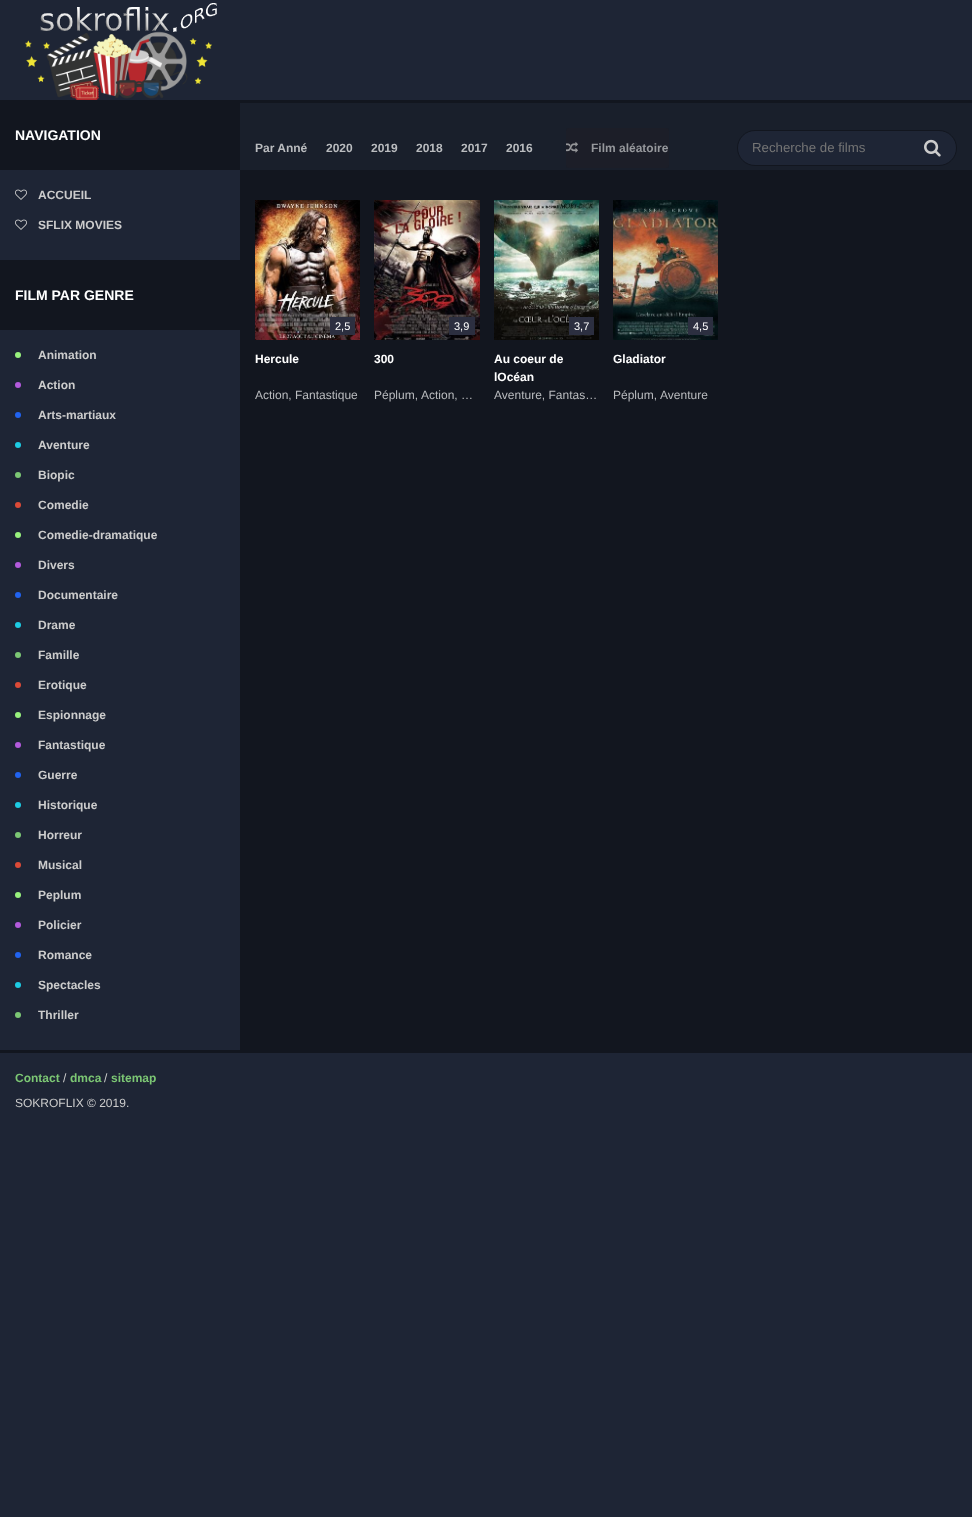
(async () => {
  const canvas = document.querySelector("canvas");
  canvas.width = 972;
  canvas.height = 1517;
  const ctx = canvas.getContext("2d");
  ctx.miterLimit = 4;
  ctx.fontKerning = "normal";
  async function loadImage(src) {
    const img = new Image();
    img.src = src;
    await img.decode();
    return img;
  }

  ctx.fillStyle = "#1e2535";
  ctx.fillRect(0, 0, 972, 1517);
  ctx.fillStyle = "#12161f";
  ctx.fillRect(240, 170, 732, 880);
  ctx.drawImage(await loadImage("img/1.png"), 25, 3, 192, 97);
  ctx.fillRect(0, 100, 240, 70);
  ctx.drawImage(await loadImage("img/2.png"), 15, 189, 12, 11);
  ctx.drawImage(await loadImage("img/2.png"), 15, 219, 12, 11);
  ctx.fillRect(0, 260, 240, 70);
  ctx.fillStyle = "#98f17d";
  ctx.beginPath();
  ctx.arc(18, 355, 3, 0, Math.PI * 2);
  ctx.fill();
  ctx.fillStyle = "#b35adc";
  ctx.beginPath();
  ctx.arc(18, 385, 3, 0, Math.PI * 2);
  ctx.fill();
  ctx.fillStyle = "#2163ef";
  ctx.beginPath();
  ctx.arc(18, 415, 3, 0, Math.PI * 2);
  ctx.fill();
  ctx.fillStyle = "#1dcbe3";
  ctx.beginPath();
  ctx.arc(18, 445, 3, 0, Math.PI * 2);
  ctx.fill();
  ctx.fillStyle = "#7cc774";
  ctx.beginPath();
  ctx.arc(18, 475, 3, 0, Math.PI * 2);
  ctx.fill();
  ctx.fillStyle = "#db4a37";
  ctx.beginPath();
  ctx.arc(18, 505, 3, 0, Math.PI * 2);
  ctx.fill();
  ctx.fillStyle = "#98f17d";
  ctx.beginPath();
  ctx.arc(18, 535, 3, 0, Math.PI * 2);
  ctx.fill();
  ctx.fillStyle = "#b35adc";
  ctx.beginPath();
  ctx.arc(18, 565, 3, 0, Math.PI * 2);
  ctx.fill();
  ctx.fillStyle = "#2163ef";
  ctx.beginPath();
  ctx.arc(18, 595, 3, 0, Math.PI * 2);
  ctx.fill();
  ctx.fillStyle = "#1dcbe3";
  ctx.beginPath();
  ctx.arc(18, 625, 3, 0, Math.PI * 2);
  ctx.fill();
  ctx.fillStyle = "#7cc774";
  ctx.beginPath();
  ctx.arc(18, 655, 3, 0, Math.PI * 2);
  ctx.fill();
  ctx.fillStyle = "#db4a37";
  ctx.beginPath();
  ctx.arc(18, 685, 3, 0, Math.PI * 2);
  ctx.fill();
  ctx.fillStyle = "#98f17d";
  ctx.beginPath();
  ctx.arc(18, 715, 3, 0, Math.PI * 2);
  ctx.fill();
  ctx.fillStyle = "#b35adc";
  ctx.beginPath();
  ctx.arc(18, 745, 3, 0, Math.PI * 2);
  ctx.fill();
  ctx.fillStyle = "#2163ef";
  ctx.beginPath();
  ctx.arc(18, 775, 3, 0, Math.PI * 2);
  ctx.fill();
  ctx.fillStyle = "#1dcbe3";
  ctx.beginPath();
  ctx.arc(18, 805, 3, 0, Math.PI * 2);
  ctx.fill();
  ctx.fillStyle = "#7cc774";
  ctx.beginPath();
  ctx.arc(18, 835, 3, 0, Math.PI * 2);
  ctx.fill();
  ctx.fillStyle = "#db4a37";
  ctx.beginPath();
  ctx.arc(18, 865, 3, 0, Math.PI * 2);
  ctx.fill();
  ctx.fillStyle = "#98f17d";
  ctx.beginPath();
  ctx.arc(18, 895, 3, 0, Math.PI * 2);
  ctx.fill();
  ctx.fillStyle = "#b35adc";
  ctx.beginPath();
  ctx.arc(18, 925, 3, 0, Math.PI * 2);
  ctx.fill();
  ctx.fillStyle = "#2163ef";
  ctx.beginPath();
  ctx.arc(18, 955, 3, 0, Math.PI * 2);
  ctx.fill();
  ctx.fillStyle = "#1dcbe3";
  ctx.beginPath();
  ctx.arc(18, 985, 3, 0, Math.PI * 2);
  ctx.fill();
  ctx.fillStyle = "#7cc774";
  ctx.beginPath();
  ctx.arc(18, 1015, 3, 0, Math.PI * 2);
  ctx.fill();
  ctx.fillStyle = "#191f2b";
  ctx.fillRect(240, 103, 732, 67);
  ctx.fillStyle = "#12161f";
  ctx.fillRect(240, 100, 732, 3);
  ctx.fillStyle = "#1c1e28";
  ctx.beginPath();
  ctx.roundRect(566, 128, 103, 40, 3);
  ctx.fill();
  ctx.drawImage(await loadImage("img/3.png"), 566, 142, 12, 11);
  ctx.fillStyle = "#1e2535";
  ctx.beginPath();
  ctx.roundRect(737.5, 130.5, 219, 35, 17.5);
  ctx.fill();
  ctx.strokeStyle = "#12161f";
  ctx.stroke();
  ctx.drawImage(await loadImage("img/4.png"), 924, 139, 17, 18);
  ctx.drawImage(await loadImage("img/5.png"), 255, 200, 105, 140);
  ctx.fillStyle = "#2c2f40";
  ctx.fillRect(330, 317, 25, 18);
  ctx.drawImage(await loadImage("img/6.png"), 374, 200, 106, 140);
  ctx.fillRect(449, 317, 26, 18);
  ctx.drawImage(await loadImage("img/7.png"), 494, 200, 105, 140);
  ctx.fillRect(569, 317, 25, 18);
  ctx.drawImage(await loadImage("img/8.png"), 613, 200, 105, 140);
  ctx.fillRect(688, 317, 25, 18);
  ctx.fillStyle = "#12161f";
  ctx.fillRect(0, 1050, 972, 3);
  ctx.font = "bold 14px Liberation Sans";
  ctx.fillStyle = "#ffffff";
  ctx.fillText("NAVIGATION", 15, 140);
  ctx.font = "bold 12px Liberation Sans";
  ctx.fillStyle = "#cccccc";
  ctx.fillText("ACCUEIL", 38, 199);
  ctx.fillText("SFLIX MOVIES", 38, 229);
  ctx.font = "bold 14px Liberation Sans";
  ctx.fillStyle = "#ffffff";
  ctx.fillText("FILM PAR GENRE", 15, 300);
  ctx.font = "bold 12px Liberation Sans";
  ctx.fillStyle = "#cccccc";
  for (const [text, x, y] of [
    ["Animation", 38, 359],
    ["Action", 38, 389],
    ["Arts-martiaux", 38, 419],
    ["Aventure", 38, 449],
    ["Biopic", 38, 479],
    ["Comedie", 38, 509],
    ["Comedie-dramatique", 38, 539],
    ["Divers", 38, 569],
    ["Documentaire", 38, 599],
    ["Drame", 38, 629],
    ["Famille", 38, 659],
    ["Erotique", 38, 689],
    ["Espionnage", 38, 719],
    ["Fantastique", 38, 749],
    ["Guerre", 38, 779],
    ["Historique", 38, 809],
    ["Horreur", 38, 839],
    ["Musical", 38, 869],
    ["Peplum", 38, 899],
    ["Policier", 38, 929],
    ["Romance", 38, 959],
    ["Spectacles", 38, 989],
    ["Thriller", 38, 1019],
  ]) {
    ctx.fillText(text, x, y);
  }
  ctx.fillStyle = "#babcbf";
  for (const [text, x, y] of [
    ["Par Anné", 255, 152],
    ["2020", 326, 152],
    ["2019", 371, 152],
    ["2018", 416, 152],
    ["2017", 461, 152],
    ["2016", 506, 152],
  ]) {
    ctx.fillText(text, x, y);
  }
  ctx.fillStyle = "#96989c";
  ctx.fillText("Film aléatoire", 591, 152);
  ctx.font = "13.25px Liberation Sans";
  ctx.fillStyle = "#757575";
  ctx.fillText("Recherche de films", 752, 152);
  ctx.font = "11px Liberation Sans";
  ctx.fillStyle = "#ffffff";
  ctx.fillText("2,5", 335, 330);
  ctx.font = "bold 12px Liberation Sans";
  ctx.fillText("Hercule", 255, 363);
  ctx.font = "12px Liberation Sans";
  ctx.fillStyle = "#babcbf";
  ctx.fillText("Action, Fantastique", 255, 399);
  ctx.font = "11px Liberation Sans";
  ctx.fillStyle = "#ffffff";
  ctx.fillText("3,9", 454, 330);
  ctx.font = "bold 12px Liberation Sans";
  ctx.fillText("300", 374, 363);
  ctx.font = "12px Liberation Sans";
  ctx.fillStyle = "#babcbf";
  ctx.fillText("Péplum,", 374, 399);
  ctx.fillText("Action, …", 421, 399);
  ctx.font = "11px Liberation Sans";
  ctx.fillStyle = "#ffffff";
  ctx.fillText("3,7", 574, 330);
  ctx.font = "bold 12px Liberation Sans";
  ctx.fillText("Au coeur de", 494, 363);
  ctx.fillText("lOcéan", 494, 381);
  ctx.font = "12px Liberation Sans";
  ctx.fillStyle = "#babcbf";
  ctx.fillText("Aventure, Fantas…", 494, 399);
  ctx.font = "11px Liberation Sans";
  ctx.fillStyle = "#ffffff";
  ctx.fillText("4,5", 693, 330);
  ctx.font = "bold 12px Liberation Sans";
  ctx.fillText("Gladiator", 613, 363);
  ctx.font = "12px Liberation Sans";
  ctx.fillStyle = "#babcbf";
  ctx.fillText("Péplum,", 613, 399);
  ctx.fillText("Aventure", 660, 399);
  ctx.font = "bold 12px Liberation Sans";
  ctx.fillStyle = "#7cc774";
  ctx.fillText("Contact", 15, 1082);
  ctx.font = "12px Liberation Sans";
  ctx.fillStyle = "#cccccc";
  ctx.fillText("/", 63, 1082);
  ctx.font = "bold 12px Liberation Sans";
  ctx.fillStyle = "#7cc774";
  ctx.fillText("dmca", 70, 1082);
  ctx.font = "12px Liberation Sans";
  ctx.fillStyle = "#cccccc";
  ctx.fillText("/", 104, 1082);
  ctx.font = "bold 12px Liberation Sans";
  ctx.fillStyle = "#7cc774";
  ctx.fillText("sitemap", 111, 1082);
  ctx.font = "12px Liberation Sans";
  ctx.fillStyle = "#cccccc";
  ctx.fillText("SOKROFLIX © 2019.", 15, 1107);
})();
